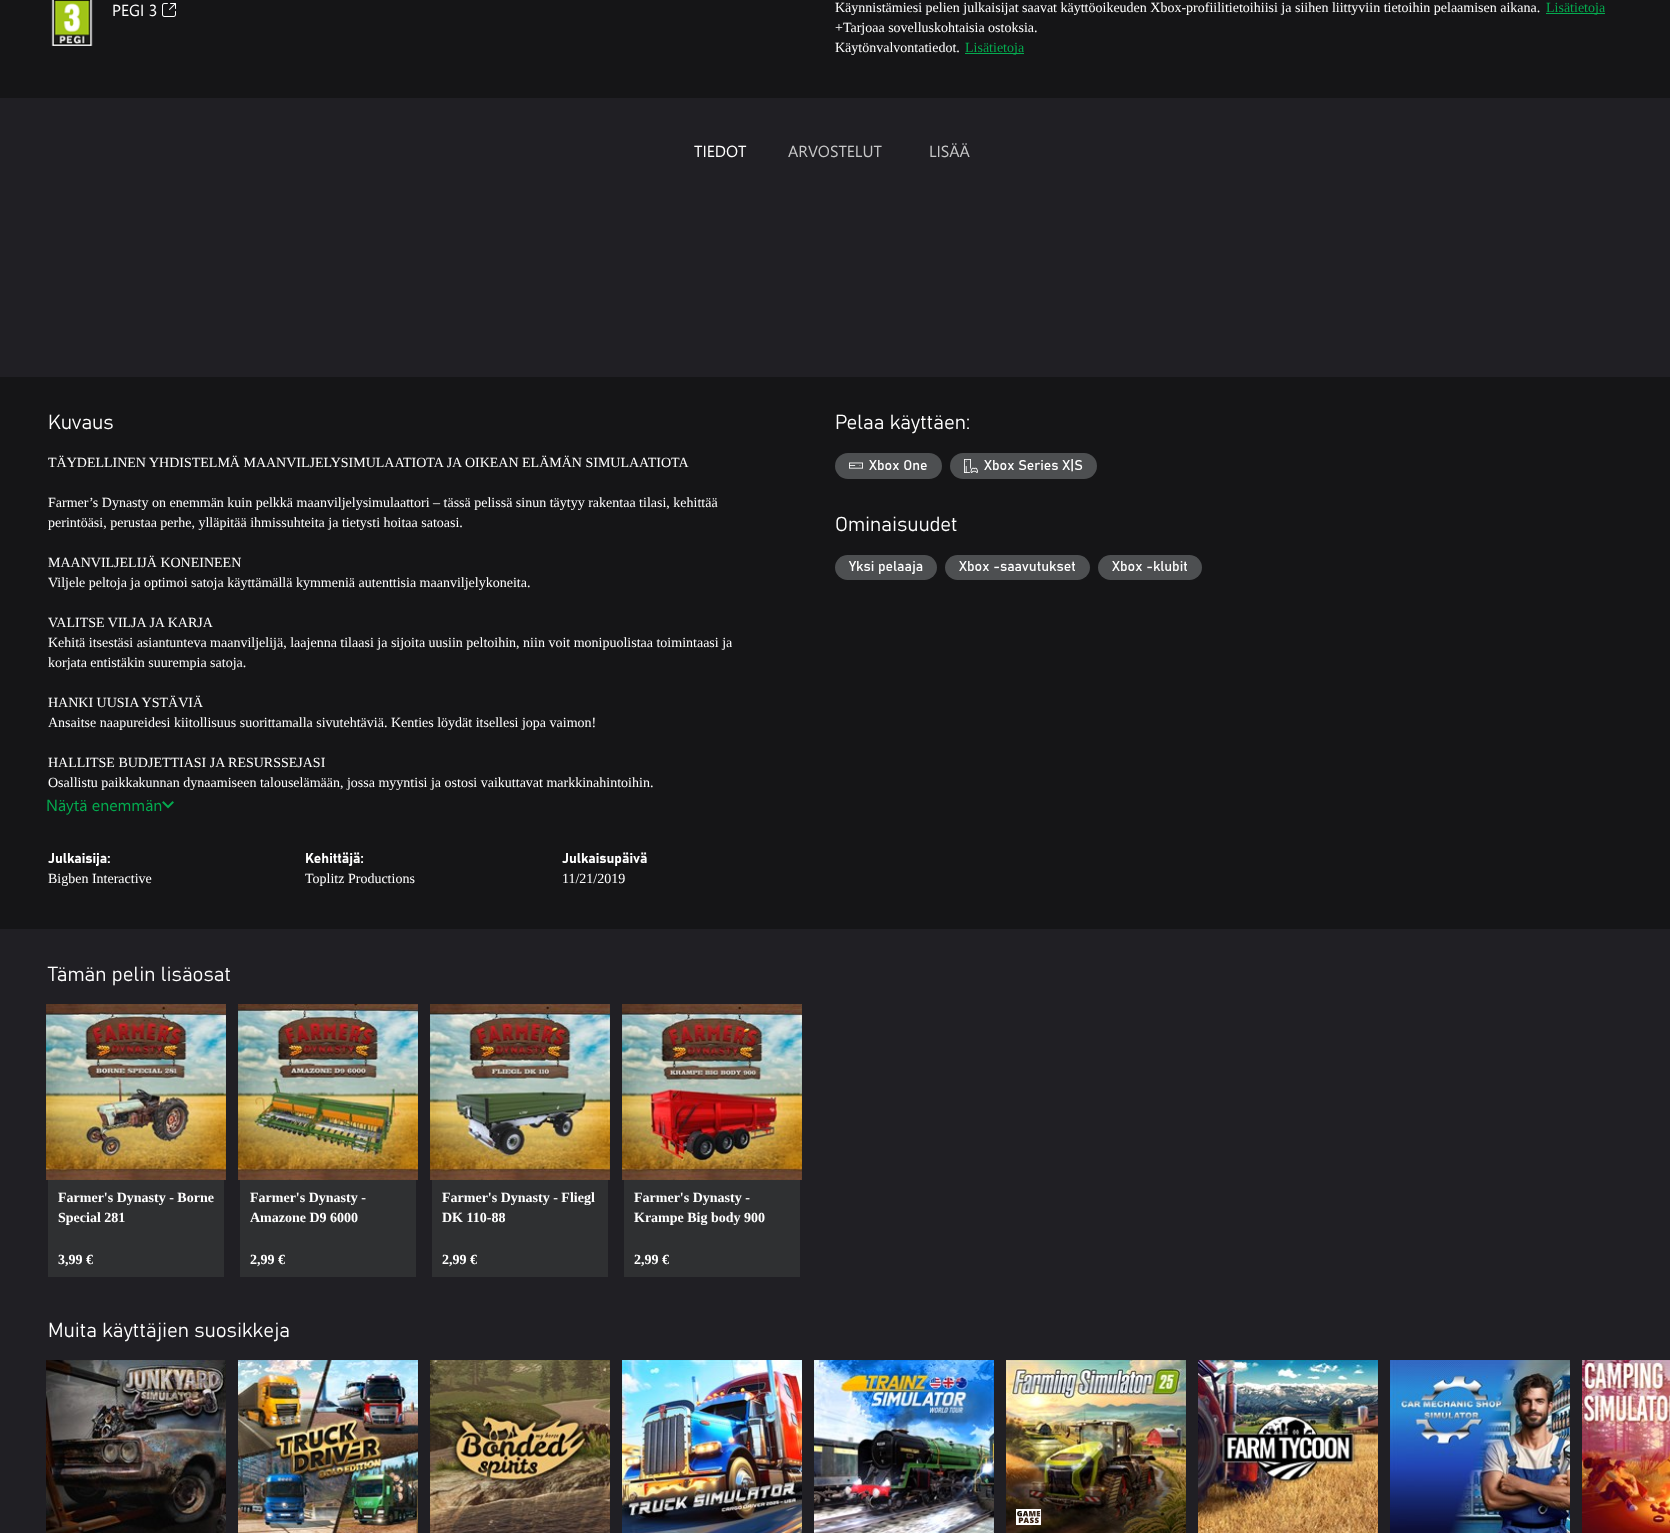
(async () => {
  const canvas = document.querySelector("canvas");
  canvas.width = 1670;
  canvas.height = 1533;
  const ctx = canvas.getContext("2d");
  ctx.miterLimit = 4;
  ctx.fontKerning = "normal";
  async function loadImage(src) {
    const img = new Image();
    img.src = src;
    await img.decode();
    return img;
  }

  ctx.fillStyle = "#201f24";
  ctx.fillRect(0, 0, 1670, 1533);
  ctx.fillStyle = "#151517";
  ctx.fillRect(0, 0, 1670, 98);
  ctx.drawImage(await loadImage("img/1.png"), 51, 0, 42, 46);
  ctx.drawImage(await loadImage("img/2.png"), 162, 3, 14, 14);
  for (const [x, y, w, h, color] of [
    [1546, 13, 59, 1, "#04ab4f"],
    [965, 53, 59, 1, "#04ab4f"],
    [0, 377, 1670, 552, "#151517"],
  ]) {
    ctx.fillStyle = color;
    ctx.fillRect(x, y, w, h);
  }
  ctx.drawImage(await loadImage("img/3.png"), 162, 801, 12, 8);
  ctx.fillStyle = "#4d4f51";
  ctx.beginPath();
  ctx.roundRect(835, 453, 107, 26, 13);
  ctx.fill();
  ctx.drawImage(await loadImage("img/4.png"), 849, 462, 14, 7);
  ctx.beginPath();
  ctx.roundRect(950, 453, 147, 26, 13);
  ctx.fill();
  ctx.drawImage(await loadImage("img/5.png"), 964, 459, 14, 14);
  ctx.beginPath();
  ctx.roundRect(835, 555, 102, 25, 12.5);
  ctx.fill();
  ctx.beginPath();
  ctx.roundRect(945, 555, 145, 25, 12.5);
  ctx.fill();
  ctx.beginPath();
  ctx.roundRect(1098, 555, 104, 25, 12.5);
  ctx.fill();
  ctx.fillStyle = "#2f3032";
  ctx.fillRect(48, 1180, 176, 97);
  ctx.drawImage(await loadImage("img/6.png"), 46, 1004, 180, 176);
  ctx.fillRect(240, 1180, 176, 97);
  ctx.drawImage(await loadImage("img/7.png"), 238, 1004, 180, 176);
  ctx.fillRect(432, 1180, 176, 97);
  ctx.drawImage(await loadImage("img/8.png"), 430, 1004, 180, 176);
  ctx.fillRect(624, 1180, 176, 97);
  ctx.drawImage(await loadImage("img/9.png"), 622, 1004, 180, 176);
  ctx.drawImage(await loadImage("img/10.png"), 46, 1360, 180, 173);
  ctx.drawImage(await loadImage("img/11.png"), 238, 1360, 180, 173);
  ctx.drawImage(await loadImage("img/12.png"), 430, 1360, 180, 173);
  ctx.drawImage(await loadImage("img/13.png"), 622, 1360, 180, 173);
  ctx.drawImage(await loadImage("img/14.png"), 814, 1360, 180, 173);
  ctx.drawImage(await loadImage("img/15.png"), 1006, 1360, 180, 173);
  ctx.drawImage(await loadImage("img/16.png"), 1016, 1509, 25, 16);
  ctx.drawImage(await loadImage("img/17.png"), 1198, 1360, 180, 173);
  ctx.drawImage(await loadImage("img/18.png"), 1390, 1360, 180, 173);
  ctx.drawImage(await loadImage("img/19.png"), 1582, 1360, 88, 173);
  ctx.font = "16px Segoe UI";
  ctx.fillStyle = "#ffffff";
  ctx.fillText("PEGI 3", 112, 16);
  ctx.font = "14px Liberation Serif";
  ctx.fillText("Käynnistämiesi pelien julkaisijat saavat käyttöoikeuden Xbox-profiilitietoihiisi ja siihen liittyviin tietoihin pelaamisen aikana.", 835, 12);
  ctx.fillStyle = "#04ab4f";
  ctx.fillText("Lisätietoja", 1546, 12);
  ctx.fillStyle = "#ffffff";
  ctx.fillText("+Tarjoaa sovelluskohtaisia ostoksia.", 835, 32);
  ctx.fillText("Käytönvalvontatiedot.", 835, 52);
  ctx.fillStyle = "#04ab4f";
  ctx.fillText("Lisätietoja", 965, 52);
  ctx.font = "16px Segoe UI";
  ctx.fillStyle = "#ffffff";
  ctx.fillText("TIEDOT", 694, 157);
  ctx.fillStyle = "#c7c7c8";
  ctx.fillText("ARVOSTELUT", 788, 157);
  ctx.fillText("LISÄÄ", 929, 157);
  ctx.font = "300 20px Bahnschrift";
  ctx.fillStyle = "#ffffff";
  ctx.fillText("Kuvaus", 48, 429);
  ctx.font = "14px Liberation Serif";
  for (const [text, x, y] of [
    ["TÄYDELLINEN YHDISTELMÄ MAANVILJELYSIMULAATIOTA JA OIKEAN ELÄMÄN SIMULAATIOTA", 48, 467],
    ["Farmer’s Dynasty on enemmän kuin pelkkä maanviljelysimulaattori – tässä pelissä sinun täytyy rakentaa tilasi, kehittää", 48, 507],
    ["perintöäsi, perustaa perhe, ylläpitää ihmissuhteita ja tietysti hoitaa satoasi.", 48, 527],
    ["MAANVILJELIJÄ KONEINEEN", 48, 567],
    ["Viljele peltoja ja optimoi satoja käyttämällä kymmeniä autenttisia maanviljelykoneita.", 48, 587],
    ["VALITSE VILJA JA KARJA", 48, 627],
    ["Kehitä itsestäsi asiantunteva maanviljelijä, laajenna tilaasi ja sijoita uusiin peltoihin, niin voit monipuolistaa toimintaasi ja", 48, 647],
    ["korjata entistäkin suurempia satoja.", 48, 667],
    ["HANKI UUSIA YSTÄVIÄ", 48, 707],
    ["Ansaitse naapureidesi kiitollisuus suorittamalla sivutehtäviä. Kenties löydät itsellesi jopa vaimon!", 48, 727],
    ["HALLITSE BUDJETTIASI JA RESURSSEJASI", 48, 767],
    ["Osallistu paikkakunnan dynaamiseen talouselämään, jossa myyntisi ja ostosi vaikuttavat markkinahintoihin.", 48, 787],
  ]) {
    ctx.fillText(text, x, y);
  }
  ctx.font = "16px Segoe UI";
  ctx.fillStyle = "#04ab4f";
  ctx.fillText("Näytä enemmän", 46, 811);
  ctx.font = "bold 14px Bahnschrift";
  ctx.fillStyle = "#ffffff";
  ctx.fillText("Julkaisija:", 48, 863);
  ctx.font = "14px Liberation Serif";
  ctx.fillText("Bigben Interactive", 48, 883);
  ctx.font = "bold 14px Bahnschrift";
  ctx.fillText("Kehittäjä:", 305, 863);
  ctx.font = "14px Liberation Serif";
  ctx.fillText("Toplitz Productions", 305, 883);
  ctx.font = "bold 14px Bahnschrift";
  ctx.fillText("Julkaisupäivä", 562, 863);
  ctx.font = "14px Liberation Serif";
  ctx.fillText("11/21/2019", 562, 883);
  ctx.font = "300 20px Bahnschrift";
  ctx.fillText("Pelaa käyttäen:", 835, 429);
  ctx.font = "14px Bahnschrift";
  ctx.fillText("Xbox One", 869, 470);
  ctx.fillText("Xbox Series X|S", 984, 470);
  ctx.font = "300 20px Bahnschrift";
  ctx.fillText("Ominaisuudet", 835, 531);
  ctx.font = "14px Bahnschrift";
  for (const [text, x, y] of [
    ["Yksi pelaaja", 849, 571],
    ["Xbox -saavutukset", 959, 571],
    ["Xbox -klubit", 1112, 571],
  ]) {
    ctx.fillText(text, x, y);
  }
  ctx.font = "300 20px Bahnschrift";
  ctx.fillText("Tämän pelin lisäosat", 48, 981);
  ctx.font = "bold 14px Liberation Serif";
  for (const [text, x, y] of [
    ["Farmer's Dynasty - Borne", 58, 1202],
    ["Special 281", 58, 1222],
    ["3,99 €", 58, 1264],
    ["Farmer's Dynasty -", 250, 1202],
    ["Amazone D9 6000", 250, 1222],
    ["2,99 €", 250, 1264],
    ["Farmer's Dynasty - Fliegl", 442, 1202],
    ["DK 110-88", 442, 1222],
    ["2,99 €", 442, 1264],
    ["Farmer's Dynasty -", 634, 1202],
    ["Krampe Big body 900", 634, 1222],
    ["2,99 €", 634, 1264],
  ]) {
    ctx.fillText(text, x, y);
  }
  ctx.font = "300 20px Bahnschrift";
  ctx.fillText("Muita käyttäjien suosikkeja", 48, 1337);
})();
